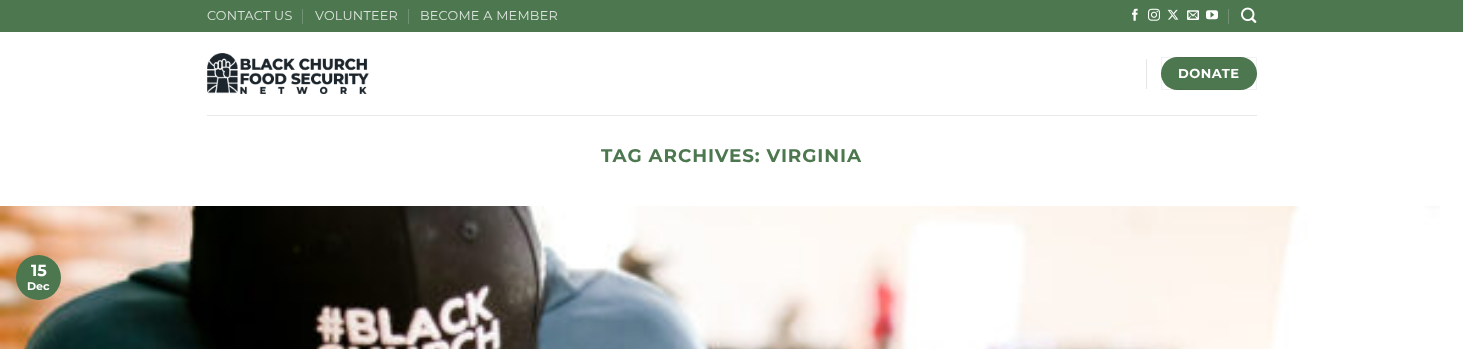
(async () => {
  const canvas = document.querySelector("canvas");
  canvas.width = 1463;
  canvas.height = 349;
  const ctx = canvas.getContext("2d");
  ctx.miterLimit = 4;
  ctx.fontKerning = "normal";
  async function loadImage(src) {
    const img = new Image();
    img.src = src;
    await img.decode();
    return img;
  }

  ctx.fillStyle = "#ffffff";
  ctx.fillRect(0, 0, 1463, 349);
  for (const [x, y, w, h, color] of [
    [0, 0, 1463, 32, "#4d774f"],
    [302, 9, 1, 15, "#719272"],
    [408, 9, 1, 15, "#719272"],
  ]) {
    ctx.fillStyle = color;
    ctx.fillRect(x, y, w, h);
  }
  ctx.drawImage(await loadImage("img/1.png"), 1132, 8, 6, 13);
  ctx.drawImage(await loadImage("img/2.png"), 1148, 8, 12, 13);
  ctx.drawImage(await loadImage("img/3.png"), 1167, 9, 12, 11);
  ctx.drawImage(await loadImage("img/4.png"), 1187, 10, 12, 10);
  ctx.drawImage(await loadImage("img/5.png"), 1206, 10, 12, 10);
  ctx.fillRect(1228, 9, 1, 15);
  ctx.drawImage(await loadImage("img/6.png"), 1241, 7, 16, 16);
  ctx.drawImage(await loadImage("img/7.png"), 207, 53, 162, 41);
  ctx.fillStyle = "#e6e6e6";
  ctx.fillRect(1146, 59, 1, 30);
  ctx.fillStyle = "#4d774f";
  ctx.beginPath();
  ctx.roundRect(1161, 57, 96, 33, 16.5);
  ctx.fill();
  ctx.strokeStyle = "rgba(0, 0, 0, 0.05)";
  ctx.strokeRect(1161.5, 57.5, 95, 32);
  ctx.fillStyle = "#e9e9ea";
  ctx.fillRect(207, 115, 1050, 1);
  ctx.drawImage(await loadImage("img/8.png"), 0, 206, 1440, 143);
  ctx.fillStyle = "#4d774f";
  ctx.beginPath();
  ctx.arc(38.5, 277.5, 22.5, 0, Math.PI * 2);
  ctx.fill();
  ctx.letterSpacing = "0.25px";
  ctx.font = "100 12.75px Montserrat";
  ctx.fillStyle = "#dbe4dc";
  for (const [text, x, y] of [
    ["CONTACT US", 207, 20],
    ["VOLUNTEER", 315, 20],
    ["BECOME A MEMBER", 420, 20],
  ]) {
    ctx.fillText(text, x, y);
  }
  ctx.letterSpacing = "0.5px";
  ctx.font = "bold 13px Montserrat";
  ctx.fillStyle = "#ffffff";
  ctx.fillText("DONATE", 1178, 78);
  ctx.letterSpacing = "0.9px";
  ctx.font = "bold 18.4px Montserrat";
  ctx.fillStyle = "#4d774f";
  ctx.fillText("TAG ARCHIVES: VIRGINIA", 601, 162);
  ctx.letterSpacing = "0px";
  ctx.font = "bold 16px Montserrat";
  ctx.fillStyle = "#ffffff";
  ctx.fillText("15", 31, 276);
  ctx.font = "bold 11px Montserrat";
  ctx.fillText("Dec", 27, 290);
})();
